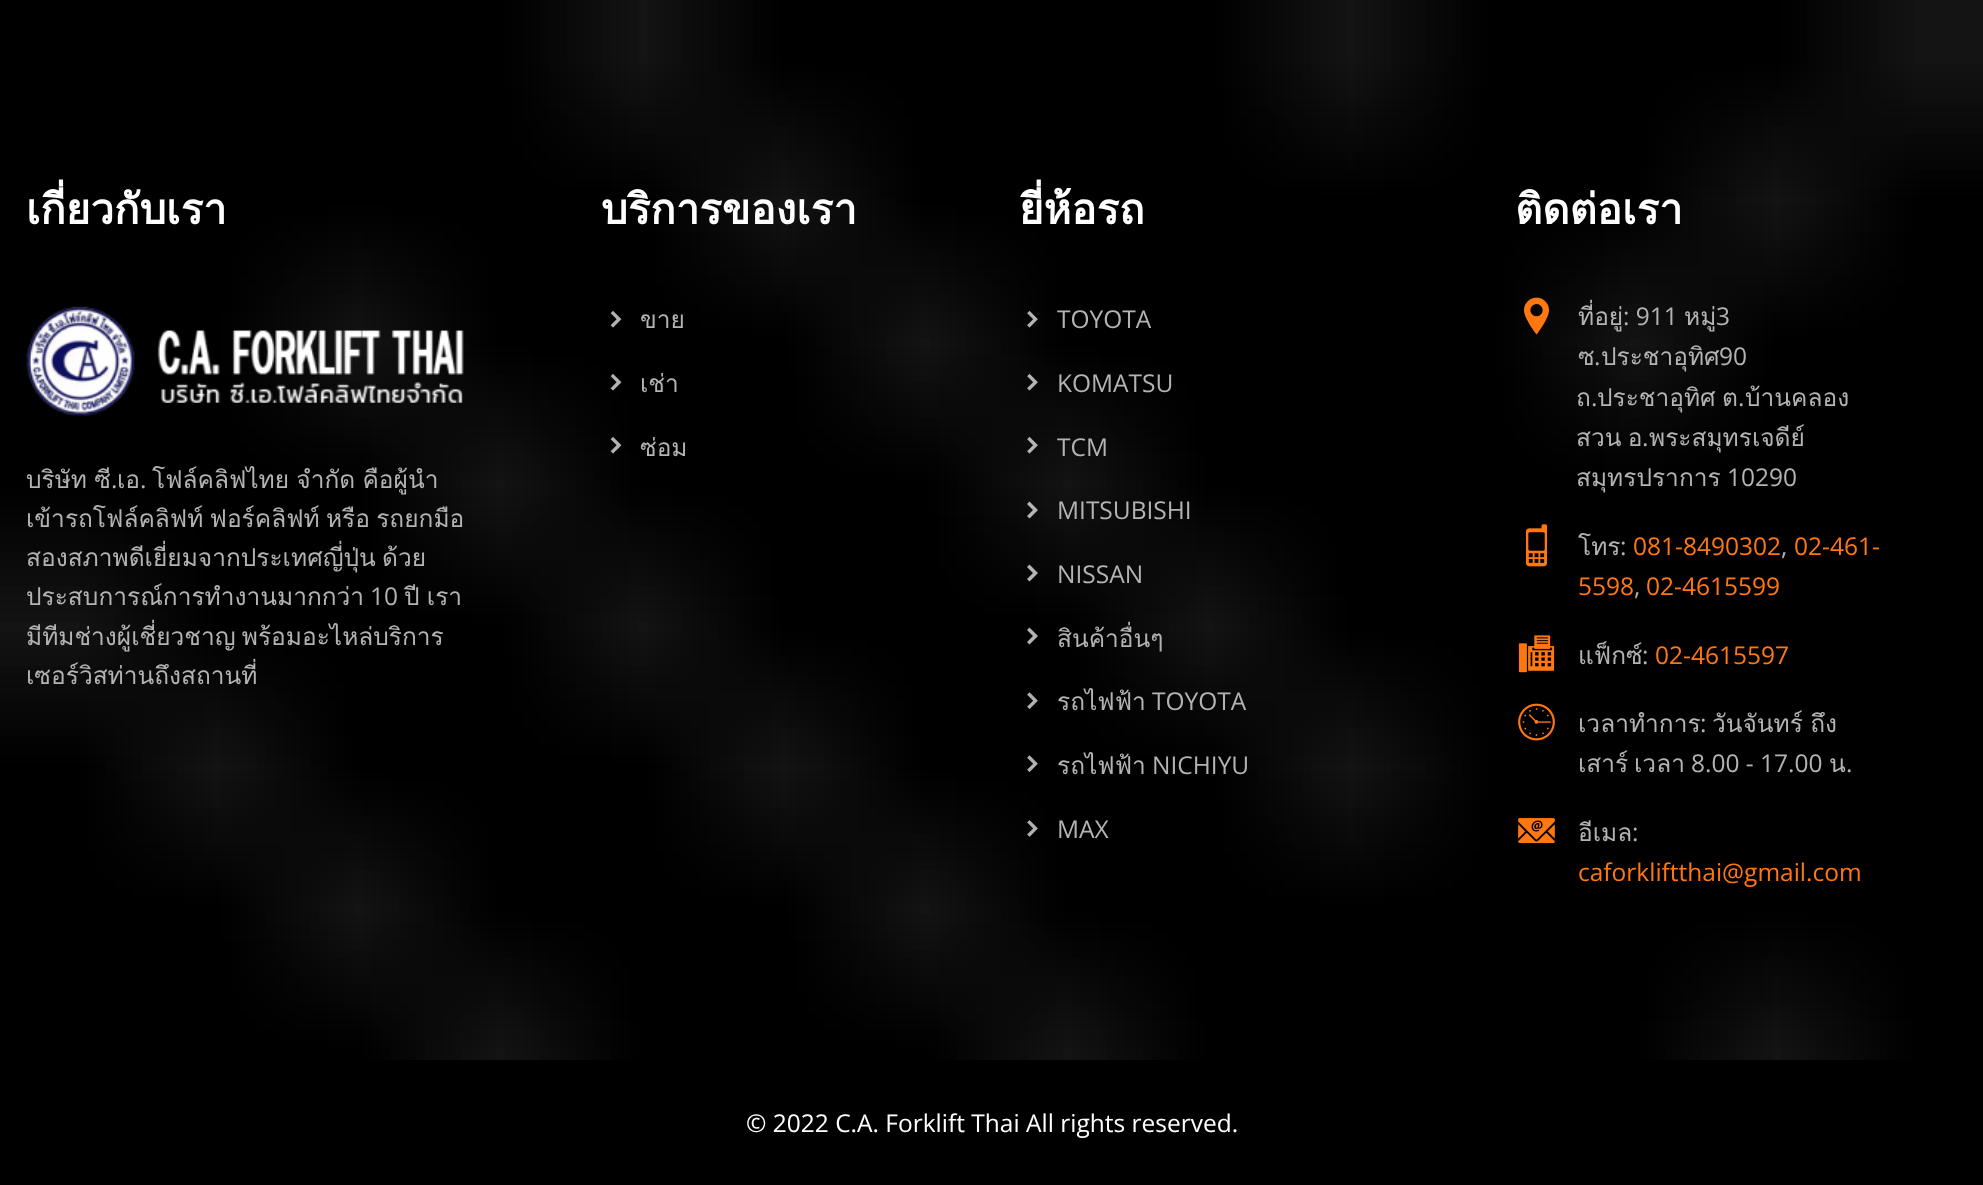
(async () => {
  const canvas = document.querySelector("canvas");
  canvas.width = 1983;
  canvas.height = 1185;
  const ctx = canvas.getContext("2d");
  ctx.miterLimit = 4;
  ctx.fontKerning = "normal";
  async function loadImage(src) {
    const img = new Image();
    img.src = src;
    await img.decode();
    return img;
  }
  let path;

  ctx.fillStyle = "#000000";
  ctx.fillRect(0, 0, 1983, 1185);
  ctx.drawImage(await loadImage("img/1.png"), 0, 0, 1983, 1060);
  ctx.drawImage(await loadImage("img/2.png"), 26, 306, 438, 110);
  ctx.drawImage(await loadImage("img/3.png"), 610, 311, 12, 17);
  ctx.drawImage(await loadImage("img/4.png"), 610, 374, 12, 17);
  ctx.drawImage(await loadImage("img/5.png"), 610, 437, 12, 17);
  ctx.drawImage(await loadImage("img/6.png"), 1027, 310, 11, 18);
  ctx.drawImage(await loadImage("img/7.png"), 1027, 373, 11, 18);
  ctx.drawImage(await loadImage("img/8.png"), 1027, 436, 11, 18);
  ctx.fillStyle = "rgba(255, 255, 255, 0.7)";
  path = new Path2D("M1029.5 518.5L1038 510L1029.5 501.5L1027 504L1033 510L1027 516Z");
  ctx.fill(path);
  ctx.fillStyle = "#b4b4b4";
  path = new Path2D("M1029.5 581.5L1038 573L1029.5 564.5L1027 567L1033 573L1027 579Z");
  ctx.fill(path);
  ctx.fillStyle = "#b3b3b3";
  path = new Path2D("M1029.5 644.5L1038 636L1029.5 627.5L1027 630L1033 636L1027 642Z");
  ctx.fill(path);
  ctx.drawImage(await loadImage("img/9.png"), 1027, 692, 11, 17);
  ctx.drawImage(await loadImage("img/9.png"), 1027, 755, 11, 17);
  ctx.drawImage(await loadImage("img/10.png"), 1027, 820, 11, 17);
  ctx.drawImage(await loadImage("img/11.png"), 1524, 297, 25, 38);
  ctx.drawImage(await loadImage("img/12.png"), 1525, 524, 23, 43);
  ctx.drawImage(await loadImage("img/13.png"), 1518, 635, 37, 38);
  ctx.drawImage(await loadImage("img/14.png"), 1518, 703, 37, 38);
  ctx.drawImage(await loadImage("img/15.png"), 1518, 818, 37, 25);
  ctx.font = "bold 42px Loma";
  ctx.fillStyle = "#ffffff";
  ctx.fillText("เกี่ยวกับเรา", 26, 224);
  ctx.wordSpacing = "-1px";
  ctx.font = "24.5px Loma";
  ctx.fillStyle = "#b3b3b3";
  ctx.fillText("บริษัท ซี", 26, 488);
  ctx.wordSpacing = "0px";
  ctx.font = "24.5px Open Sans";
  ctx.fillText(".", 111, 488);
  ctx.font = "24.5px Loma";
  ctx.fillText("เอ", 117, 488);
  ctx.font = "24.5px Open Sans";
  ctx.fillText(".", 140, 488);
  ctx.wordSpacing = "-1px";
  ctx.font = "24.5px Loma";
  ctx.fillText("โฟล์คลิฟไทย จำกัด คือผู้นำ", 152, 488);
  ctx.wordSpacing = "-2px";
  ctx.fillText("เข้ารถโฟล์คลิฟท์ ฟอร์คลิฟท์ หรือ รถยกมือ", 26, 527);
  ctx.fillText("สองสภาพดีเยี่ยมจากประเทศญี่ปุ่น ด้วย", 26, 566);
  ctx.wordSpacing = "0px";
  ctx.fillText("ประสบการณ์การทำงานมากกว่า", 26, 605);
  ctx.font = "24.5px Open Sans";
  ctx.fillText("10", 370, 605);
  ctx.wordSpacing = "-1px";
  ctx.font = "24.5px Loma";
  ctx.fillText("ปี เรา", 404, 605);
  ctx.wordSpacing = "-2px";
  ctx.fillText("มีทีมช่างผู้เชี่ยวชาญ พร้อมอะไหล่บริการ", 26, 645);
  ctx.wordSpacing = "0px";
  ctx.fillText("เซอร์วิสท่านถึงสถานที่", 26, 684);
  ctx.font = "bold 42px Loma";
  ctx.fillStyle = "#ffffff";
  ctx.fillText("บริการของเรา", 601, 224);
  ctx.font = "24.5px Loma";
  ctx.fillStyle = "#b3b3b3";
  for (const [text, x, y] of [
    ["ขาย", 640, 328],
    ["เช่า", 640, 392],
    ["ซ่อม", 640, 456],
  ]) {
    ctx.fillText(text, x, y);
  }
  ctx.font = "bold 42px Loma";
  ctx.fillStyle = "#ffffff";
  ctx.fillText("ยี่ห้อรถ", 1019, 224);
  ctx.font = "24.5px Open Sans";
  ctx.fillStyle = "#b3b3b3";
  for (const [text, x, y] of [
    ["TOYOTA", 1057, 328],
    ["KOMATSU", 1057, 392],
    ["TCM", 1057, 456],
    ["MITSUBISHI", 1057, 519],
    ["NISSAN", 1057, 583],
  ]) {
    ctx.fillText(text, x, y);
  }
  ctx.font = "24.5px Loma";
  ctx.fillText("สินค้าอื่นๆ", 1057, 647);
  ctx.fillText("รถไฟฟ้า", 1057, 710);
  ctx.font = "24.5px Open Sans";
  ctx.fillText("TOYOTA", 1152, 710);
  ctx.font = "24.5px Loma";
  ctx.fillText("รถไฟฟ้า", 1057, 774);
  ctx.font = "24.5px Open Sans";
  ctx.fillText("NICHIYU", 1152, 774);
  ctx.fillText("MAX", 1057, 838);
  ctx.font = "bold 42px Loma";
  ctx.fillStyle = "#ffffff";
  ctx.fillText("ติดต่อเรา", 1515, 224);
  ctx.font = "24.5px Loma";
  ctx.fillStyle = "#b3b3b3";
  ctx.fillText("ที่อยู่", 1578, 325);
  ctx.font = "24.5px Open Sans";
  ctx.fillText(": 911", 1623, 325);
  ctx.font = "24.5px Loma";
  ctx.fillText("หมู่", 1684, 325);
  ctx.font = "24.5px Open Sans";
  ctx.fillText("3", 1716, 325);
  ctx.font = "24.5px Loma";
  ctx.fillText("ซ", 1578, 365);
  ctx.font = "24.5px Open Sans";
  ctx.fillText(".", 1594, 365);
  ctx.font = "24.5px Loma";
  ctx.fillText("ประชาอุทิศ", 1601, 365);
  ctx.font = "24.5px Open Sans";
  ctx.fillText("90", 1719, 365);
  ctx.font = "24.5px Loma";
  ctx.fillText("ถ", 1576, 406);
  ctx.font = "24.5px Open Sans";
  ctx.fillText(".", 1591, 406);
  ctx.wordSpacing = "-2px";
  ctx.font = "24.5px Loma";
  ctx.fillText("ประชาอุทิศ ต", 1597, 406);
  ctx.wordSpacing = "0px";
  ctx.font = "24.5px Open Sans";
  ctx.fillText(".", 1738, 406);
  ctx.font = "24.5px Loma";
  ctx.fillText("บ้านคลอง", 1745, 406);
  ctx.wordSpacing = "-2px";
  ctx.fillText("สวน อ", 1576, 446);
  ctx.wordSpacing = "0px";
  ctx.font = "24.5px Open Sans";
  ctx.fillText(".", 1642, 446);
  ctx.font = "24.5px Loma";
  ctx.fillText("พระสมุทรเจดีย์", 1649, 446);
  ctx.fillText("สมุทรปราการ", 1576, 486);
  ctx.font = "24.5px Open Sans";
  ctx.fillText("10290", 1727, 486);
  ctx.font = "24.5px Loma";
  ctx.fillText("โทร", 1578, 555);
  ctx.font = "24.5px Open Sans";
  ctx.fillText(":", 1620, 555);
  ctx.fillStyle = "#ff7711";
  ctx.fillText("081-8490302", 1633, 555);
  ctx.fillStyle = "#b3b3b3";
  ctx.fillText(",", 1781, 555);
  ctx.fillStyle = "#ff7711";
  ctx.fillText("02-461-", 1794, 555);
  ctx.fillText("5598", 1578, 595);
  ctx.fillStyle = "#b3b3b3";
  ctx.fillText(",", 1634, 595);
  ctx.fillStyle = "#ff7711";
  ctx.fillText("02-4615599", 1646, 595);
  ctx.font = "24.5px Loma";
  ctx.fillStyle = "#b3b3b3";
  ctx.fillText("แฟ็กซ์", 1578, 664);
  ctx.font = "24.5px Open Sans";
  ctx.fillText(":", 1642, 664);
  ctx.fillStyle = "#ff7711";
  ctx.fillText("02-4615597", 1655, 664);
  ctx.font = "24.5px Loma";
  ctx.fillStyle = "#b3b3b3";
  ctx.fillText("เวลาทำการ", 1578, 732);
  ctx.font = "24.5px Open Sans";
  ctx.fillText(":", 1700, 732);
  ctx.wordSpacing = "-1px";
  ctx.font = "24.5px Loma";
  ctx.fillText("วันจันทร์ ถึง", 1712, 732);
  ctx.wordSpacing = "0px";
  ctx.fillText("เสาร์", 1578, 772);
  ctx.fillText("เวลา", 1634, 772);
  ctx.font = "24.5px Open Sans";
  ctx.fillText("8.00 - 17.00", 1691, 772);
  ctx.font = "24.5px Loma";
  ctx.fillText("น", 1829, 772);
  ctx.font = "24.5px Open Sans";
  ctx.fillText(".", 1846, 772);
  ctx.font = "24.5px Loma";
  ctx.fillText("อีเมล", 1578, 841);
  ctx.font = "24.5px Open Sans";
  ctx.fillText(":", 1632, 841);
  ctx.fillStyle = "#ff7711";
  ctx.fillText("caforkliftthai@gmail.com", 1578, 881);
  ctx.fillStyle = "#ffffff";
  ctx.fillText("© 2022 C.A. Forklift Thai All rights reserved.", 746, 1132);
})();
